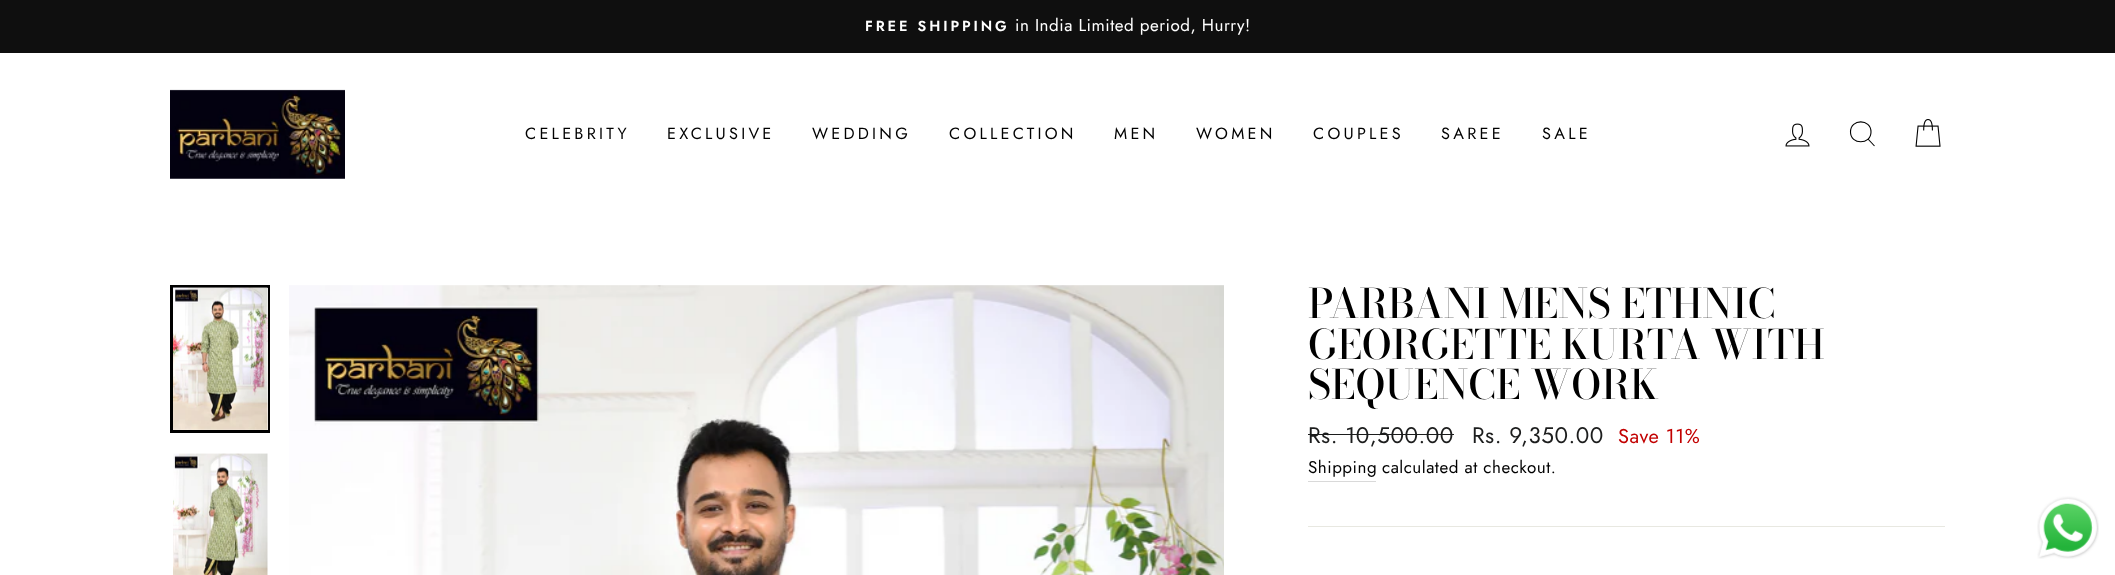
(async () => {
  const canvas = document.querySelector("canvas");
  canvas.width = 2115;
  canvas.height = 575;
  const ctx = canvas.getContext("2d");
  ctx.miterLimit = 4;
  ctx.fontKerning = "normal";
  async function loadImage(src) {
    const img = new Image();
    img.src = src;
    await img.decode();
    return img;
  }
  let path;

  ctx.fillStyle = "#ffffff";
  ctx.fillRect(0, 0, 2115, 575);
  ctx.fillStyle = "#0f0f0f";
  ctx.fillRect(0, 0, 2115, 53);
  ctx.drawImage(await loadImage("img/1.png"), 170, 89, 175, 90);
  ctx.drawImage(await loadImage("img/2.png"), 1785, 123, 25, 24);
  path = new Path2D("M1871 132C1871 145 1850.5 145 1850.5 132C1850.5 118.5 1871 118.5 1871 132ZM1874.5 146L1868 139");
  ctx.strokeStyle = "#000000";
  ctx.lineWidth = 1.1;
  ctx.stroke(path);
  ctx.drawImage(await loadImage("img/3.png"), 1915, 119, 26, 28);
  ctx.lineWidth = 3;
  ctx.strokeRect(171.5, 286.5, 97, 145);
  ctx.fillStyle = "#ffffff";
  ctx.fillRect(267, 288, 1, 142);
  ctx.drawImage(await loadImage("img/4.png"), 173, 287, 95, 143);
  ctx.drawImage(await loadImage("img/5.png"), 173, 453, 95, 122);
  ctx.drawImage(await loadImage("img/6.png"), 289, 285, 935, 290);
  for (const [x, y, w, h, color] of [
    [1308, 434, 146, 1, "#1c1d1d"],
    [1308, 481, 68, 1, "#d9d9d9"],
    [1308, 526, 637, 1, "#e8e8e1"],
  ]) {
    ctx.fillStyle = color;
    ctx.fillRect(x, y, w, h);
  }
  ctx.drawImage(await loadImage("img/7.png"), 2037, 496, 62, 63);
  ctx.letterSpacing = "2.9px";
  ctx.font = "600 14.5px Jost";
  ctx.fillStyle = "#ffffff";
  ctx.fillText("FREE SHIPPING", 865, 31);
  ctx.letterSpacing = "0.5px";
  ctx.font = "17px Jost";
  ctx.fillText("in India Limited period, Hurry!", 1015, 31);
  ctx.letterSpacing = "3.25px";
  ctx.font = "16.25px Jost";
  ctx.fillStyle = "#000000";
  for (const [text, x, y] of [
    ["CELEBRITY", 525, 139],
    ["EXCLUSIVE", 667, 139],
    ["WEDDING", 812, 139],
    ["COLLECTION", 949, 139],
    ["MEN", 1114, 139],
    ["WOMEN", 1196, 139],
    ["COUPLES", 1313, 139],
    ["SAREE", 1441, 139],
    ["SALE", 1542, 139],
  ]) {
    ctx.fillText(text, x, y);
  }
  ctx.letterSpacing = "0px";
  ctx.font = "500 40.4px Bodoni Moda";
  for (const [text, x, y] of [
    ["PARBANI MENS ETHNIC", 1308, 318],
    ["GEORGETTE KURTA WITH", 1308, 359],
    ["SEQUENCE WORK", 1308, 399],
  ]) {
    ctx.fillText(text, x, y);
  }
  ctx.letterSpacing = "0.5px";
  ctx.font = "22.5px Jost";
  ctx.fillStyle = "#1c1d1d";
  ctx.fillText("Rs. 10,500.00", 1308, 443);
  ctx.fillText("Rs. 9,350.00", 1472, 443);
  ctx.font = "20px Jost";
  ctx.fillStyle = "#c20000";
  ctx.fillText("Save 11%", 1618, 443);
  ctx.font = "17px Jost";
  ctx.fillStyle = "#000000";
  ctx.fillText("Shipping", 1308, 473);
  ctx.fillText("calculated at checkout.", 1382, 473);
})();
